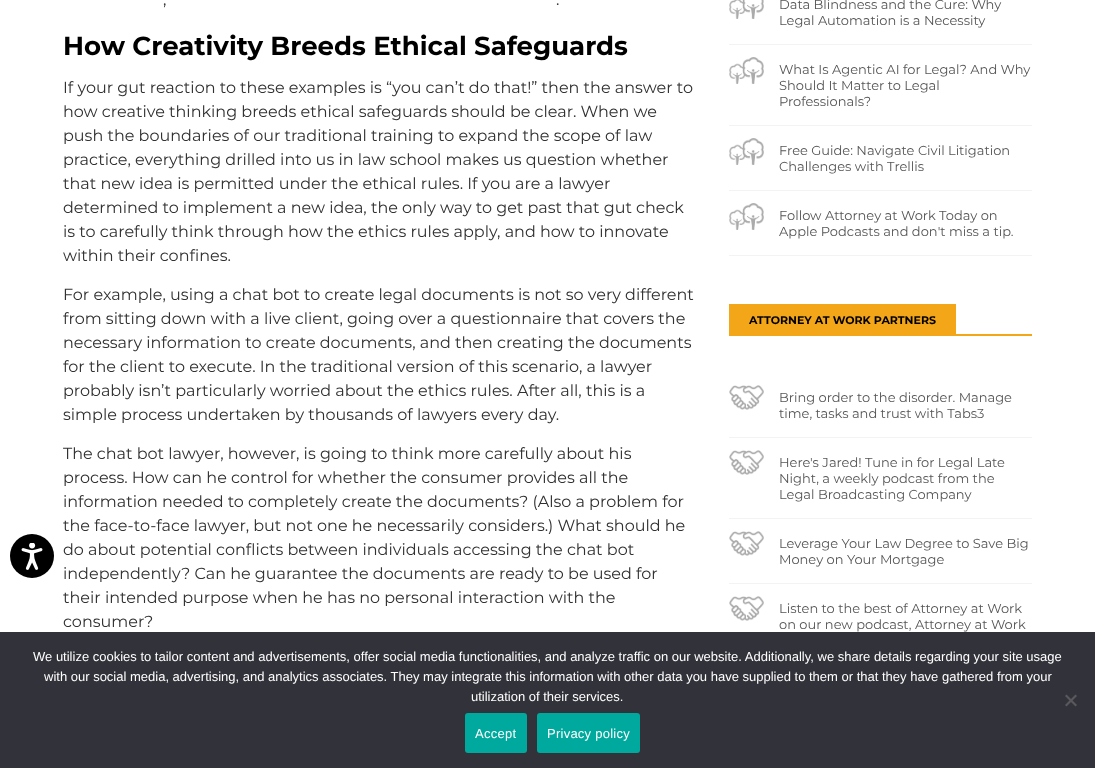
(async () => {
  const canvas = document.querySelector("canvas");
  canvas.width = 1095;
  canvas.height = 768;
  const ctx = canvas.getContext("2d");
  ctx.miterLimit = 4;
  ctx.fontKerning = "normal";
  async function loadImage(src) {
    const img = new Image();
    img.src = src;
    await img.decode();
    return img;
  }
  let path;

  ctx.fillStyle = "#ffffff";
  ctx.fillRect(0, 0, 1095, 768);
  ctx.fillStyle = "#000000";
  ctx.beginPath();
  ctx.arc(32, 556, 22, 0, Math.PI * 2);
  ctx.fill();
  ctx.drawImage(await loadImage("img/1.png"), 21, 543, 22, 27);
  ctx.fillStyle = "#f3f3f3";
  ctx.fillRect(729, 44, 303, 1);
  ctx.drawImage(await loadImage("img/2.png"), 729, 0, 35, 19);
  ctx.fillRect(729, 125, 303, 1);
  ctx.drawImage(await loadImage("img/3.png"), 729, 57, 35, 27);
  ctx.fillRect(729, 190, 303, 1);
  ctx.drawImage(await loadImage("img/3.png"), 729, 138, 35, 27);
  ctx.fillRect(729, 255, 303, 1);
  ctx.drawImage(await loadImage("img/3.png"), 729, 203, 35, 27);
  for (const [x, y, w, h, color] of [
    [729, 334, 303, 2, "#f3a617"],
    [729, 304, 227, 30, "#f3a617"],
    [729, 437, 303, 1, "#f3f3f3"],
  ]) {
    ctx.fillStyle = color;
    ctx.fillRect(x, y, w, h);
  }
  ctx.drawImage(await loadImage("img/4.png"), 729, 385, 35, 25);
  ctx.fillRect(729, 518, 303, 1);
  ctx.drawImage(await loadImage("img/4.png"), 729, 450, 35, 25);
  ctx.fillRect(729, 583, 303, 1);
  ctx.drawImage(await loadImage("img/4.png"), 729, 531, 35, 25);
  ctx.drawImage(await loadImage("img/4.png"), 729, 596, 35, 25);
  ctx.fillStyle = "#32323a";
  ctx.fillRect(0, 632, 1095, 136);
  ctx.fillStyle = "#59595d";
  path = new Path2D("M1075.5 694.5L1077 696L1066.5 706.5L1065 705Z");
  ctx.fill(path);
  path = new Path2D("M1065 696L1066.5 694.5L1077 705L1075.5 706.5Z");
  ctx.fill(path);
  ctx.fillStyle = "#00a99d";
  ctx.beginPath();
  ctx.roundRect(465, 713, 62, 40, 3);
  ctx.fill();
  ctx.beginPath();
  ctx.roundRect(537, 713, 103, 40, 3);
  ctx.fill();
  ctx.font = "16px Montserrat";
  ctx.fillStyle = "#313131";
  ctx.fillText(",", 163, 5);
  ctx.fillText(".", 556, 5);
  ctx.font = "bold 26px Montserrat";
  ctx.fillStyle = "#000000";
  ctx.fillText("How Creativity Breeds Ethical Safeguards", 63, 55);
  ctx.font = "16px Montserrat";
  ctx.fillStyle = "#313131";
  for (const [text, x, y] of [
    ["If your gut reaction to these examples is “you can’t do that!” then the answer to", 63, 93],
    ["how creative thinking breeds ethical safeguards should be clear. When we", 63, 117],
    ["push the boundaries of our traditional training to expand the scope of law", 63, 141],
    ["practice, everything drilled into us in law school makes us question whether", 63, 165],
    ["that new idea is permitted under the ethical rules. If you are a lawyer", 63, 189],
    ["determined to implement a new idea, the only way to get past that gut check", 63, 213],
    ["is to carefully think through how the ethics rules apply, and how to innovate", 63, 237],
    ["within their confines.", 63, 261],
    ["For example, using a chat bot to create legal documents is not so very different", 63, 300],
    ["from sitting down with a live client, going over a questionnaire that covers the", 63, 324],
    ["necessary information to create documents, and then creating the documents", 63, 348],
    ["for the client to execute. In the traditional version of this scenario, a lawyer", 63, 372],
    ["probably isn’t particularly worried about the ethics rules. After all, this is a", 63, 396],
    ["simple process undertaken by thousands of lawyers every day.", 63, 420],
    ["The chat bot lawyer, however, is going to think more carefully about his", 63, 459],
    ["process. How can he control for whether the consumer provides all the", 63, 483],
    ["information needed to completely create the documents? (Also a problem for", 63, 507],
    ["the face-to-face lawyer, but not one he necessarily considers.) What should he", 63, 531],
    ["do about potential conflicts between individuals accessing the chat bot", 63, 555],
    ["independently? Can he guarantee the documents are ready to be used for", 63, 579],
    ["their intended purpose when he has no personal interaction with the", 63, 603],
    ["consumer?", 63, 627],
  ]) {
    ctx.fillText(text, x, y);
  }
  ctx.font = "13px Montserrat";
  ctx.fillStyle = "#565656";
  for (const [text, x, y] of [
    ["Data Blindness and the Cure: Why", 779, 9],
    ["Legal Automation is a Necessity", 779, 25],
    ["What Is Agentic AI for Legal? And Why", 779, 74],
    ["Should It Matter to Legal", 779, 90],
    ["Professionals?", 779, 106],
    ["Free Guide: Navigate Civil Litigation", 779, 155],
    ["Challenges with Trellis", 779, 171],
    ["Follow Attorney at Work Today on", 779, 220],
    ["Apple Podcasts and don't miss a tip.", 779, 236],
  ]) {
    ctx.fillText(text, x, y);
  }
  ctx.font = "bold 11px Montserrat";
  ctx.fillStyle = "#000000";
  ctx.fillText("ATTORNEY AT WORK PARTNERS", 749, 324);
  ctx.font = "13px Montserrat";
  ctx.fillStyle = "#565656";
  for (const [text, x, y] of [
    ["Bring order to the disorder. Manage", 779, 402],
    ["time, tasks and trust with Tabs3", 779, 418],
    ["Here's Jared! Tune in for Legal Late", 779, 467],
    ["Night, a weekly podcast from the", 779, 483],
    ["Legal Broadcasting Company", 779, 499],
    ["Leverage Your Law Degree to Save Big", 779, 548],
    ["Money on Your Mortgage", 779, 564],
    ["Listen to the best of Attorney at Work", 779, 613],
    ["on our new podcast, Attorney at Work", 779, 629],
  ]) {
    ctx.fillText(text, x, y);
  }
  ctx.font = "13px Liberation Sans";
  ctx.fillStyle = "#ffffff";
  for (const [text, x, y] of [
    ["We utilize cookies to tailor content and advertisements, offer social media functionalities, and analyze traffic on our website. Additionally, we share details regarding your site usage", 33, 661],
    ["with our social media, advertising, and analytics associates. They may integrate this information with other data you have supplied to them or that they have gathered from your", 44, 681],
    ["utilization of their services.", 471, 701],
  ]) {
    ctx.fillText(text, x, y);
  }
  ctx.letterSpacing = "0.25px";
  ctx.fillText("Accept", 475, 738);
  ctx.fillText("Privacy policy", 547, 738);
})();
